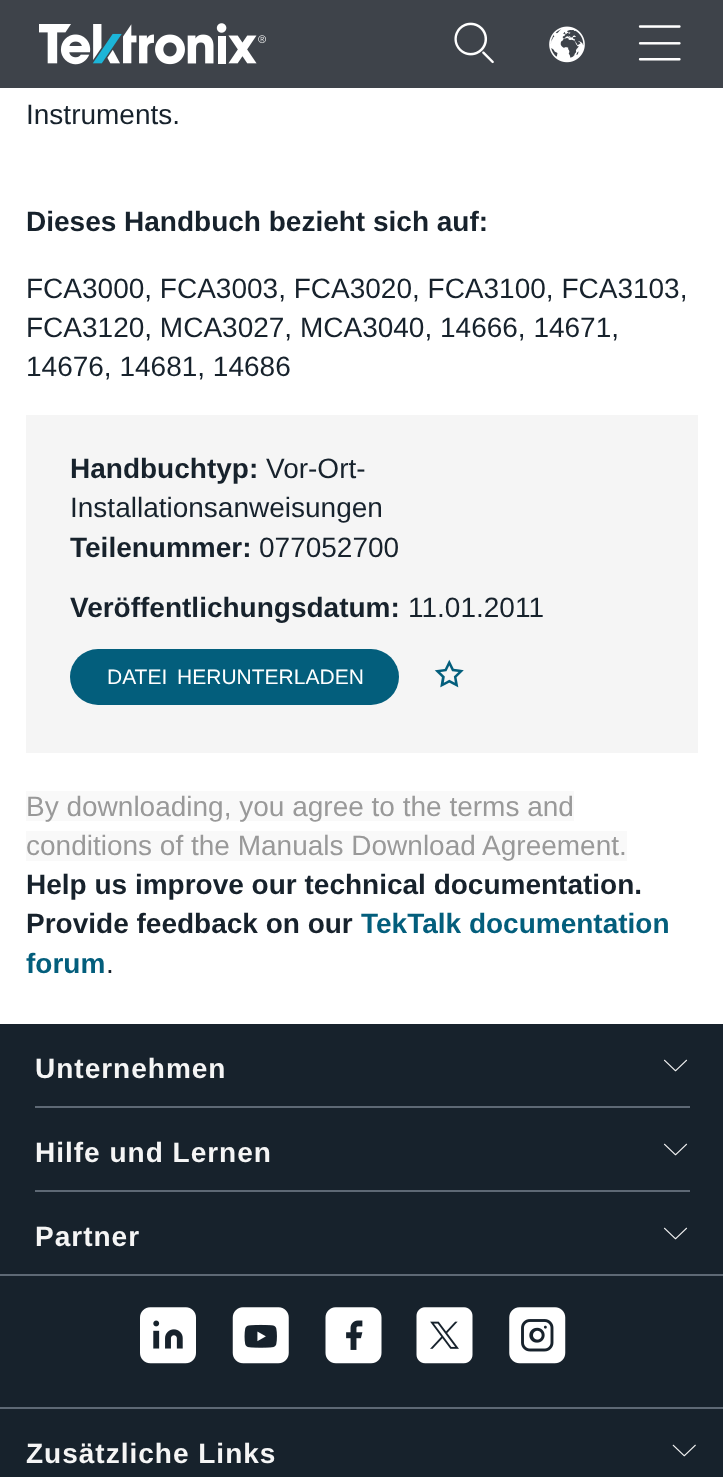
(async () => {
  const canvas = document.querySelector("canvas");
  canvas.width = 723;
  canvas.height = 1477;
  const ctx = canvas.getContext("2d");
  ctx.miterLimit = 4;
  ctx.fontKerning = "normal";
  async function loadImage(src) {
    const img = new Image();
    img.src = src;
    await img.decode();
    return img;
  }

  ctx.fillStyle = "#ffffff";
  ctx.fillRect(0, 0, 723, 1477);
  ctx.fillStyle = "#3e434a";
  ctx.fillRect(0, 0, 723, 88);
  ctx.drawImage(await loadImage("img/1.png"), 39, 23, 227, 42);
  ctx.drawImage(await loadImage("img/2.png"), 454, 22, 40, 42);
  ctx.drawImage(await loadImage("img/3.png"), 549, 26, 36, 37);
  ctx.drawImage(await loadImage("img/4.png"), 638, 25, 43, 36);
  ctx.fillStyle = "#f5f5f5";
  ctx.fillRect(26, 415, 672, 338);
  ctx.fillStyle = "#035e7c";
  ctx.beginPath();
  ctx.roundRect(70, 649, 329, 56, 28);
  ctx.fill();
  ctx.drawImage(await loadImage("img/5.png"), 434, 659, 30, 29);
  for (const [x, y, w, h, color] of [
    [26, 791, 548, 30, "#f9f9f9"],
    [26, 831, 601, 30, "#f9f9f9"],
    [0, 1024, 723, 383, "#17222c"],
  ]) {
    ctx.fillStyle = color;
    ctx.fillRect(x, y, w, h);
  }
  ctx.drawImage(await loadImage("img/6.png"), 663, 1059, 25, 13);
  ctx.fillStyle = "#5e6975";
  ctx.fillRect(35, 1106, 655, 2);
  ctx.drawImage(await loadImage("img/6.png"), 663, 1143, 25, 13);
  ctx.fillRect(35, 1190, 655, 2);
  ctx.drawImage(await loadImage("img/6.png"), 663, 1227, 25, 13);
  ctx.fillRect(0, 1274, 723, 2);
  ctx.drawImage(await loadImage("img/7.png"), 140, 1307, 56, 57);
  ctx.drawImage(await loadImage("img/8.png"), 232, 1307, 57, 57);
  ctx.drawImage(await loadImage("img/9.png"), 325, 1307, 57, 57);
  ctx.drawImage(await loadImage("img/10.png"), 416, 1307, 57, 57);
  ctx.drawImage(await loadImage("img/11.png"), 509, 1307, 57, 57);
  ctx.fillStyle = "#17222c";
  ctx.fillRect(0, 1409, 723, 68);
  ctx.fillStyle = "#5e6975";
  ctx.fillRect(0, 1407, 723, 2);
  ctx.drawImage(await loadImage("img/12.png"), 672, 1444, 24, 13);
  ctx.font = "28px Liberation Sans";
  ctx.fillStyle = "#17222c";
  ctx.fillText("Instruments.", 26, 124);
  ctx.font = "bold 28px Liberation Sans";
  ctx.fillText("Dieses Handbuch bezieht sich auf:", 26, 231);
  ctx.font = "28px Liberation Sans";
  for (const [text, x, y] of [
    ["FCA3000, FCA3003, FCA3020, FCA3100, FCA3103,", 26, 298],
    ["FCA3120, MCA3027, MCA3040, 14666, 14671,", 26, 337],
    ["14676, 14681, 14686", 26, 376],
  ]) {
    ctx.fillText(text, x, y);
  }
  ctx.font = "bold 28px Liberation Sans";
  ctx.fillText("Handbuchtyp:", 70, 478);
  ctx.font = "28px Liberation Sans";
  ctx.fillText("Vor-Ort-", 266, 478);
  ctx.fillText("Installationsanweisungen", 70, 517);
  ctx.font = "bold 28px Liberation Sans";
  ctx.fillText("Teilenummer:", 70, 557);
  ctx.font = "28px Liberation Sans";
  ctx.fillText("077052700", 259, 557);
  ctx.font = "bold 28px Liberation Sans";
  ctx.fillText("Veröffentlichungsdatum:", 70, 617);
  ctx.font = "28px Liberation Sans";
  ctx.fillText("11.01.2011", 408, 617);
  ctx.wordSpacing = "4px";
  ctx.font = "21px Liberation Sans";
  ctx.fillStyle = "#ffffff";
  ctx.fillText("DATEI HERUNTERLADEN", 107, 684);
  ctx.wordSpacing = "0px";
  ctx.font = "28px Liberation Sans";
  ctx.fillStyle = "#999999";
  ctx.fillText("By downloading, you agree to the terms and", 26, 816);
  ctx.fillText("conditions of the Manuals Download Agreement.", 26, 855);
  ctx.font = "bold 28px Liberation Sans";
  ctx.fillStyle = "#17222c";
  ctx.fillText("Help us improve our technical documentation.", 26, 894);
  ctx.fillText("Provide feedback on our", 26, 933);
  ctx.fillStyle = "#035e7c";
  ctx.fillText("TekTalk documentation", 361, 933);
  ctx.fillText("forum", 26, 973);
  ctx.font = "28px Liberation Sans";
  ctx.fillStyle = "#17222c";
  ctx.fillText(".", 106, 973);
  ctx.letterSpacing = "1px";
  ctx.font = "bold 28px Liberation Sans";
  ctx.fillStyle = "#f5f5f5";
  for (const [text, x, y] of [
    ["Unternehmen", 35, 1078],
    ["Hilfe und Lernen", 35, 1162],
    ["Partner", 35, 1246],
    ["Zusätzliche Links", 26, 1463],
  ]) {
    ctx.fillText(text, x, y);
  }
})();
